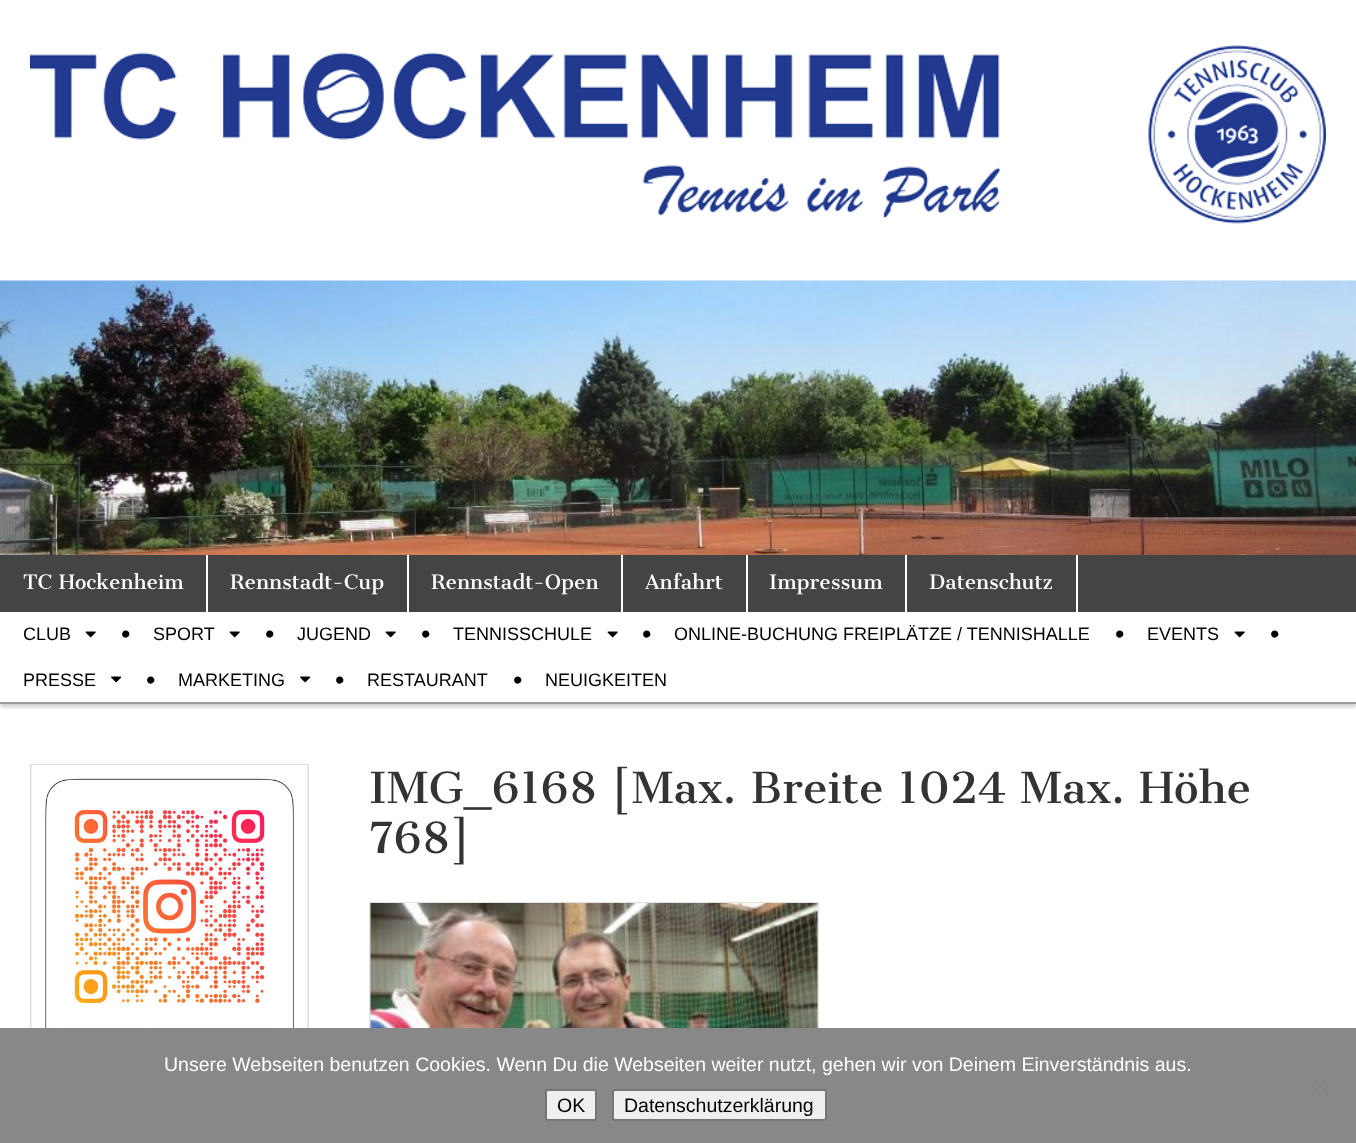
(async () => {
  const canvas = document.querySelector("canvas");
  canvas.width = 1356;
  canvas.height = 1143;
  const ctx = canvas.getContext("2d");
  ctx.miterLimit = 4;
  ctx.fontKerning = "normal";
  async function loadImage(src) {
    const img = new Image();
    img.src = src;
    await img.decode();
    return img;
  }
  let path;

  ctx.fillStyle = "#ffffff";
  ctx.fillRect(0, 0, 1356, 1143);
  ctx.drawImage(await loadImage("img/1.png"), 30, 45, 1296, 179);
  ctx.drawImage(await loadImage("img/2.png"), 0, 280, 1356, 275);
  ctx.fillStyle = "#444444";
  ctx.fillRect(0, 555, 1356, 57);
  ctx.save();
  ctx.beginPath();
  ctx.rect(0, 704, 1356, 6);
  ctx.clip();
  ctx.fillStyle = "rgba(0, 0, 0, 0.2)";
  ctx.filter = "blur(2px)";
  ctx.beginPath();
  ctx.rect(0, 615, 1356, 92);
  ctx.fill();
  ctx.filter = "none";
  ctx.restore();
  for (const [x, y, w, h, color] of [
    [206, 555, 2, 57, "#ffffff"],
    [407, 555, 2, 57, "#ffffff"],
    [621, 555, 2, 57, "#ffffff"],
    [746, 555, 2, 57, "#ffffff"],
    [905, 555, 2, 57, "#ffffff"],
    [1076, 555, 2, 57, "#ffffff"],
    [0, 702, 1356, 2, "#999999"],
  ]) {
    ctx.fillStyle = color;
    ctx.fillRect(x, y, w, h);
  }
  ctx.drawImage(await loadImage("img/3.png"), 85, 631, 11, 7);
  ctx.drawImage(await loadImage("img/3.png"), 229, 631, 11, 7);
  ctx.drawImage(await loadImage("img/3.png"), 385, 631, 11, 7);
  ctx.drawImage(await loadImage("img/3.png"), 607, 631, 11, 7);
  ctx.drawImage(await loadImage("img/3.png"), 1234, 631, 11, 7);
  ctx.drawImage(await loadImage("img/4.png"), 111, 676, 11, 7);
  ctx.drawImage(await loadImage("img/4.png"), 300, 676, 11, 7);
  ctx.drawImage(await loadImage("img/5.png"), 30, 763, 279, 1);
  ctx.strokeStyle = "#dddddd";
  ctx.lineWidth = 2;
  ctx.strokeRect(31, 765, 277, 332);
  ctx.drawImage(await loadImage("img/6.png"), 31, 765, 277, 263);
  ctx.strokeStyle = "#e2e2e2";
  ctx.strokeRect(370, 903, 448, 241);
  ctx.drawImage(await loadImage("img/7.png"), 370, 903, 448, 125);
  ctx.fillStyle = "#888888";
  ctx.fillRect(0, 1028, 1356, 115);
  ctx.fillStyle = "#848484";
  path = new Path2D("M1327 1077L1329 1079L1313 1095L1311 1093Z");
  ctx.fill(path);
  path = new Path2D("M1311 1079L1313 1077L1329 1093L1327 1095Z");
  ctx.fill(path);
  ctx.fillStyle = "#efefef";
  ctx.beginPath();
  ctx.roundRect(546, 1090, 50, 30, 2);
  ctx.fill();
  ctx.strokeStyle = "#767676";
  ctx.stroke();
  ctx.beginPath();
  ctx.roundRect(613, 1090, 213, 30, 2);
  ctx.fill();
  ctx.stroke();
  ctx.font = "19.5px Cantata One";
  ctx.fillStyle = "#ffffff";
  for (const [text, x, y] of [
    ["TC Hockenheim", 23, 589],
    ["Rennstadt-Cup", 230, 589],
    ["Rennstadt-Open", 431, 589],
    ["Anfahrt", 645, 589],
    ["Impressum", 769, 589],
    ["Datenschutz", 929, 589],
  ]) {
    ctx.fillText(text, x, y);
  }
  ctx.font = "18px Liberation Sans";
  ctx.fillStyle = "#000000";
  ctx.fillText("CLUB", 23, 640);
  ctx.font = "27px Liberation Sans";
  ctx.fillText("•", 121, 643);
  ctx.font = "18px Liberation Sans";
  ctx.fillText("SPORT", 153, 640);
  ctx.font = "27px Liberation Sans";
  ctx.fillText("•", 265, 643);
  ctx.font = "18px Liberation Sans";
  ctx.fillText("JUGEND", 297, 640);
  ctx.font = "27px Liberation Sans";
  ctx.fillText("•", 421, 643);
  ctx.font = "18px Liberation Sans";
  ctx.fillText("TENNISSCHULE", 453, 640);
  ctx.font = "27px Liberation Sans";
  ctx.fillText("•", 642, 643);
  ctx.font = "18px Liberation Sans";
  ctx.fillText("ONLINE-BUCHUNG FREIPLÄTZE / TENNISHALLE", 674, 640);
  ctx.font = "27px Liberation Sans";
  ctx.fillText("•", 1115, 643);
  ctx.font = "18px Liberation Sans";
  ctx.fillText("EVENTS", 1147, 640);
  ctx.font = "27px Liberation Sans";
  ctx.fillText("•", 1270, 643);
  ctx.font = "18px Liberation Sans";
  ctx.fillText("PRESSE", 23, 686);
  ctx.font = "27px Liberation Sans";
  ctx.fillText("•", 146, 689);
  ctx.font = "18px Liberation Sans";
  ctx.fillText("MARKETING", 178, 686);
  ctx.font = "27px Liberation Sans";
  ctx.fillText("•", 335, 689);
  ctx.font = "18px Liberation Sans";
  ctx.fillText("RESTAURANT", 367, 686);
  ctx.font = "27px Liberation Sans";
  ctx.fillText("•", 513, 689);
  ctx.font = "18px Liberation Sans";
  ctx.fillText("NEUIGKEITEN", 545, 686);
  ctx.font = "42px Cantata One";
  ctx.fillStyle = "#333333";
  ctx.fillText("IMG_6168 [Max. Breite 1024 Max. Höhe", 369, 803);
  ctx.fillText("768]", 369, 853);
  ctx.font = "19.5px Liberation Sans";
  ctx.fillStyle = "#ffffff";
  ctx.fillText("Unsere Webseiten benutzen Cookies. Wenn Du die Webseiten weiter nutzt, gehen wir von Deinem Einverständnis aus.", 164, 1071);
  ctx.fillStyle = "#000000";
  ctx.fillText("OK", 557, 1112);
  ctx.fillText("Datenschutzerklärung", 624, 1112);
})();
